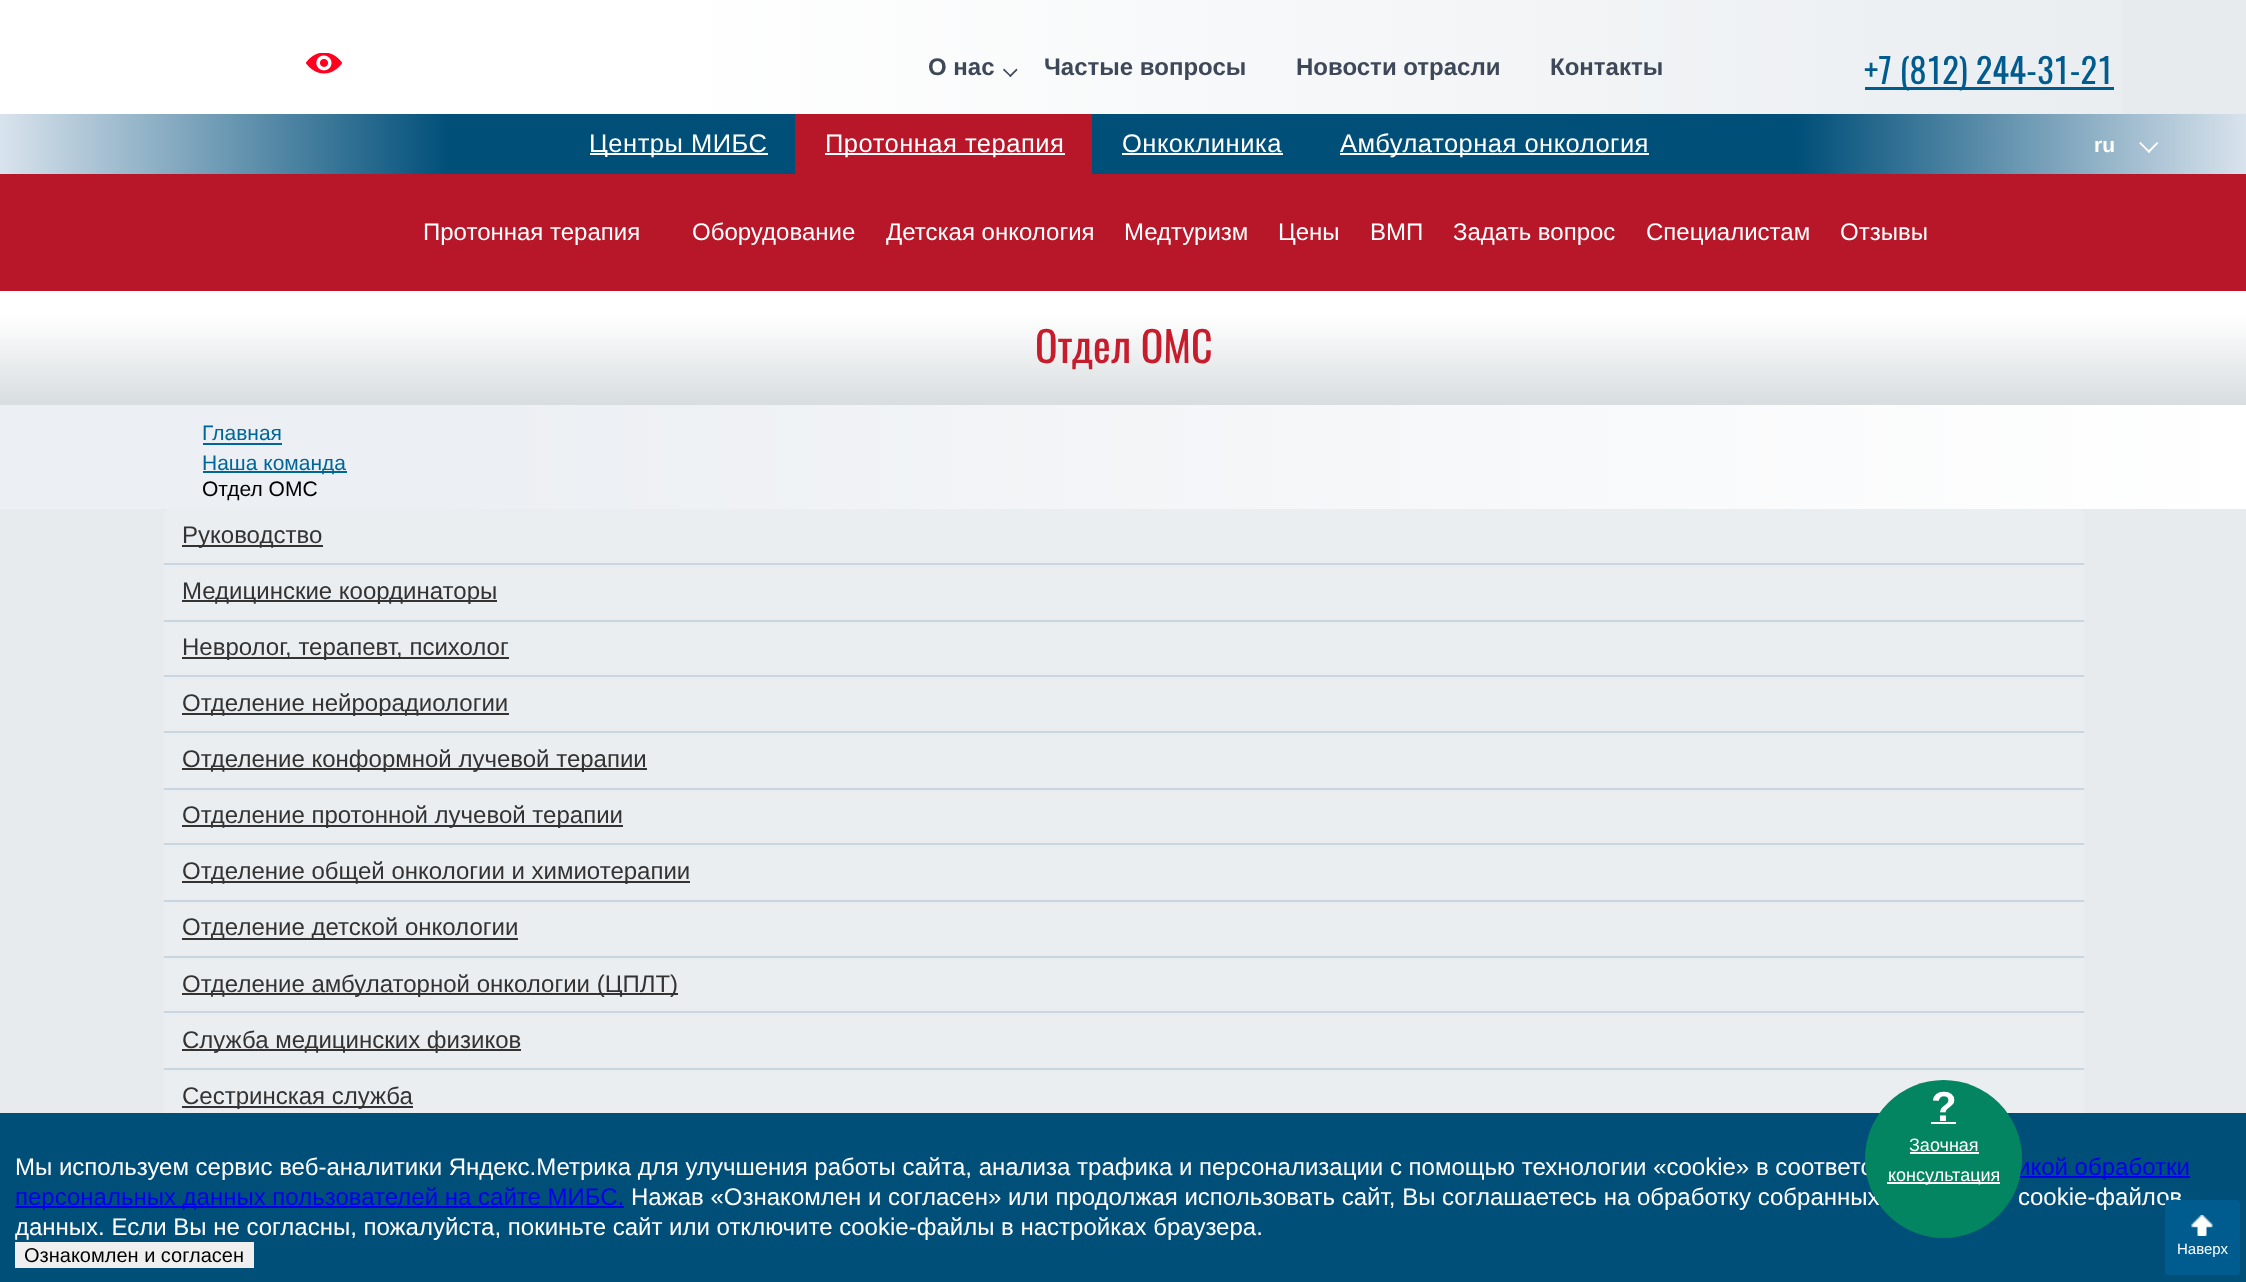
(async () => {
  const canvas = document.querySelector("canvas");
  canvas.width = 2246;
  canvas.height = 1282;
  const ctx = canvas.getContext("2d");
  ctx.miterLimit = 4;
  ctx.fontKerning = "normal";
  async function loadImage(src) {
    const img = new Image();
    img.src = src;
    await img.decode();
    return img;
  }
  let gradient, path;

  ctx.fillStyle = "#e8ebee";
  ctx.fillRect(0, 0, 2246, 1282);
  gradient = ctx.createLinearGradient(0, 63, 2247, 63);
  gradient.addColorStop(0, "#ffffff");
  gradient.addColorStop(0.3, "#ffffff");
  gradient.addColorStop(1, "#e8ecef");
  ctx.fillStyle = gradient;
  ctx.fillRect(0, 0, 2123, 114);
  ctx.drawImage(await loadImage("img/1.png"), 306, 53, 36, 21);
  ctx.fillStyle = "#3f4858";
  path = new Path2D("M1016.5 68.5L1017.5 70L1010.5 77L1009 76Z");
  ctx.fill(path);
  path = new Path2D("M1004 68.5L1011.5 76L1010.5 77L1003 70Z");
  ctx.fill(path);
  ctx.fillStyle = "#005c8e";
  ctx.fillRect(1865, 87, 249, 3);
  gradient = ctx.createLinearGradient(0, 144, 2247, 144);
  gradient.addColorStop(0, "#d9e3ed");
  gradient.addColorStop(0.2, "#004f79");
  gradient.addColorStop(0.8, "#004f79");
  gradient.addColorStop(1, "#d9e3ed");
  ctx.fillStyle = gradient;
  ctx.fillRect(0, 114, 2246, 60);
  for (const [x, y, w, h, color] of [
    [590, 153, 178, 2, "#ffffff"],
    [795, 114, 297, 60, "#b71728"],
    [825, 153, 240, 2, "#ffffff"],
    [1122, 153, 161, 2, "#ffffff"],
    [1340, 153, 309, 2, "#ffffff"],
    [0, 174, 2246, 117, "#b71728"],
  ]) {
    ctx.fillStyle = color;
    ctx.fillRect(x, y, w, h);
  }
  ctx.fillStyle = "#ffffff";
  path = new Path2D("M2157 142L2158.5 143L2149 153L2147.5 151.5Z");
  ctx.fill(path);
  path = new Path2D("M2140.5 142L2150 151.5L2149 153L2139 143Z");
  ctx.fill(path);
  ctx.fillRect(0, 291, 2246, 23);
  gradient = ctx.createLinearGradient(1124, 314, 1124, 405);
  gradient.addColorStop(0, "#ffffff");
  gradient.addColorStop(1, "#d8dddf");
  ctx.fillStyle = gradient;
  ctx.fillRect(0, 314, 2246, 91);
  gradient = ctx.createLinearGradient(0, 456, 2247, 456);
  gradient.addColorStop(0.2, "#eceff3");
  gradient.addColorStop(1, "#ffffff");
  ctx.fillStyle = gradient;
  ctx.fillRect(0, 405, 2246, 104);
  ctx.fillStyle = "#006699";
  ctx.fillRect(203, 443, 79, 2);
  ctx.fillRect(203, 471, 144, 2);
  ctx.fillStyle = "#ebeef1";
  ctx.beginPath();
  ctx.roundRect(164, 509, 1920, 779, 6);
  ctx.fill();
  for (const [x, y, w, h, color] of [
    [182, 545, 141, 2, "#333333"],
    [164, 563, 1920, 2, "#c8d6e1"],
    [164, 620, 1920, 2, "#c8d6e1"],
    [182, 600, 315, 2, "#333333"],
    [182, 657, 327, 2, "#333333"],
    [164, 675, 1920, 2, "#c8d6e1"],
    [164, 731, 1920, 2, "#c8d6e1"],
    [182, 713, 327, 2, "#333333"],
    [182, 768, 465, 2, "#333333"],
    [164, 788, 1920, 2, "#c8d6e1"],
    [164, 843, 1920, 2, "#c8d6e1"],
    [182, 825, 441, 2, "#333333"],
    [182, 881, 508, 2, "#333333"],
    [164, 900, 1920, 2, "#c8d6e1"],
    [164, 956, 1920, 2, "#c8d6e1"],
    [182, 938, 336, 2, "#333333"],
    [182, 993, 496, 2, "#333333"],
    [164, 1011, 1920, 2, "#c8d6e1"],
    [164, 1068, 1920, 2, "#c8d6e1"],
    [182, 1049, 339, 2, "#333333"],
    [182, 1106, 231, 2, "#333333"],
    [0, 1113, 2246, 169, "#004f79"],
    [2019, 1176, 171, 2, "#0000ee"],
    [15, 1206, 609, 2, "#0000ee"],
    [15, 1242, 239, 26, "#efefef"],
  ]) {
    ctx.fillStyle = color;
    ctx.fillRect(x, y, w, h);
  }
  ctx.font = "bold 24px Liberation Sans";
  ctx.fillStyle = "#3f4858";
  for (const [text, x, y] of [
    ["О нас", 928, 75],
    ["Частые вопросы", 1044, 75],
    ["Новости отрасли", 1296, 75],
    ["Контакты", 1550, 75],
  ]) {
    ctx.fillText(text, x, y);
  }
  ctx.font = "34.5px Oswald";
  ctx.fillStyle = "#005c8e";
  ctx.fillText("+7 (812) 244-31-21", 1864, 84);
  ctx.letterSpacing = "0.5px";
  ctx.font = "25.5px Liberation Sans";
  ctx.fillStyle = "#ffffff";
  for (const [text, x, y] of [
    ["Центры МИБС", 589, 152],
    ["Протонная терапия", 825, 152],
    ["Онкоклиника", 1122, 152],
    ["Амбулаторная онкология", 1340, 152],
  ]) {
    ctx.fillText(text, x, y);
  }
  ctx.letterSpacing = "0px";
  ctx.font = "bold 21px Liberation Sans";
  ctx.fillText("ru", 2094, 152);
  ctx.font = "24px Liberation Sans";
  for (const [text, x, y] of [
    ["Протонная терапия", 423, 240],
    ["Оборудование", 692, 240],
    ["Детская онкология", 886, 240],
    ["Медтуризм", 1124, 240],
    ["Цены", 1278, 240],
    ["ВМП", 1370, 240],
    ["Задать вопрос", 1453, 240],
    ["Специалистам", 1646, 240],
    ["Отзывы", 1840, 240],
  ]) {
    ctx.fillText(text, x, y);
  }
  ctx.font = "42px Oswald";
  ctx.fillStyle = "#c61c2c";
  ctx.fillText("Отдел ОМС", 1035, 363);
  ctx.font = "21px Liberation Sans";
  ctx.fillStyle = "#006699";
  ctx.fillText("Главная", 202, 440);
  ctx.fillText("Наша команда", 202, 470);
  ctx.fillStyle = "#000000";
  ctx.fillText("Отдел ОМС", 202, 496);
  ctx.font = "24px Liberation Sans";
  ctx.fillStyle = "#333333";
  for (const [text, x, y] of [
    ["Руководство", 182, 543],
    ["Медицинские координаторы", 182, 599],
    ["Невролог, терапевт, психолог", 182, 655],
    ["Отделение нейрорадиологии", 182, 711],
    ["Отделение конформной лучевой терапии", 182, 767],
    ["Отделение протонной лучевой терапии", 182, 823],
    ["Отделение общей онкологии и химиотерапии", 182, 879],
    ["Отделение детской онкологии", 182, 935],
    ["Отделение амбулаторной онкологии (ЦПЛТ)", 182, 992],
    ["Служба медицинских физиков", 182, 1048],
    ["Сестринская служба", 182, 1104],
  ]) {
    ctx.fillText(text, x, y);
  }
  ctx.fillStyle = "#ffffff";
  ctx.fillText("Мы используем сервис веб-аналитики Яндекс.Метрика для улучшения работы сайта, анализа трафика и персонализации с помощью технологии «cookie» в соответс", 15, 1175);
  ctx.fillStyle = "#0000ee";
  ctx.fillText("икой обработки", 2017, 1175);
  ctx.fillText("персональных данных пользователей на сайте МИБС.", 15, 1205);
  ctx.fillStyle = "#ffffff";
  ctx.fillText("Нажав «Ознакомлен и согласен» или продолжая использовать сайт, Вы соглашаетесь на обработку собранных", 631, 1205);
  ctx.fillText("cookie-файлов", 2018, 1205);
  ctx.fillStyle = "#048561";
  ctx.beginPath();
  ctx.roundRect(1865, 1080, 157, 158, 78.5);
  ctx.fill();
  ctx.fillStyle = "#ffffff";
  ctx.fillRect(1887, 1182, 113, 2);
  ctx.font = "18px Liberation Sans";
  ctx.fillText("консультация", 1888, 1181);
  ctx.fillText("Заочная", 1909, 1151);
  ctx.fillRect(1910, 1152, 69, 2);
  ctx.font = "bold 42px Liberation Sans";
  ctx.fillText("?", 1931, 1121);
  ctx.fillRect(1931, 1122, 25, 2);
  ctx.fillStyle = "#005c8e";
  ctx.beginPath();
  ctx.roundRect(2165, 1200, 75, 75, 3);
  ctx.fill();
  ctx.font = "15px Liberation Sans";
  ctx.fillStyle = "#ffffff";
  ctx.fillText("Наверх", 2177, 1254);
  ctx.drawImage(await loadImage("img/2.png"), 2191, 1215, 22, 21);
  ctx.font = "24px Liberation Sans";
  ctx.fillText("данных. Если Вы не согласны, пожалуйста, покиньте сайт или отключите cookie-файлы в настройках браузера.", 15, 1235);
  ctx.font = "20px Liberation Sans";
  ctx.fillStyle = "#000000";
  ctx.fillText("Ознакомлен и согласен", 24, 1262);
})();
